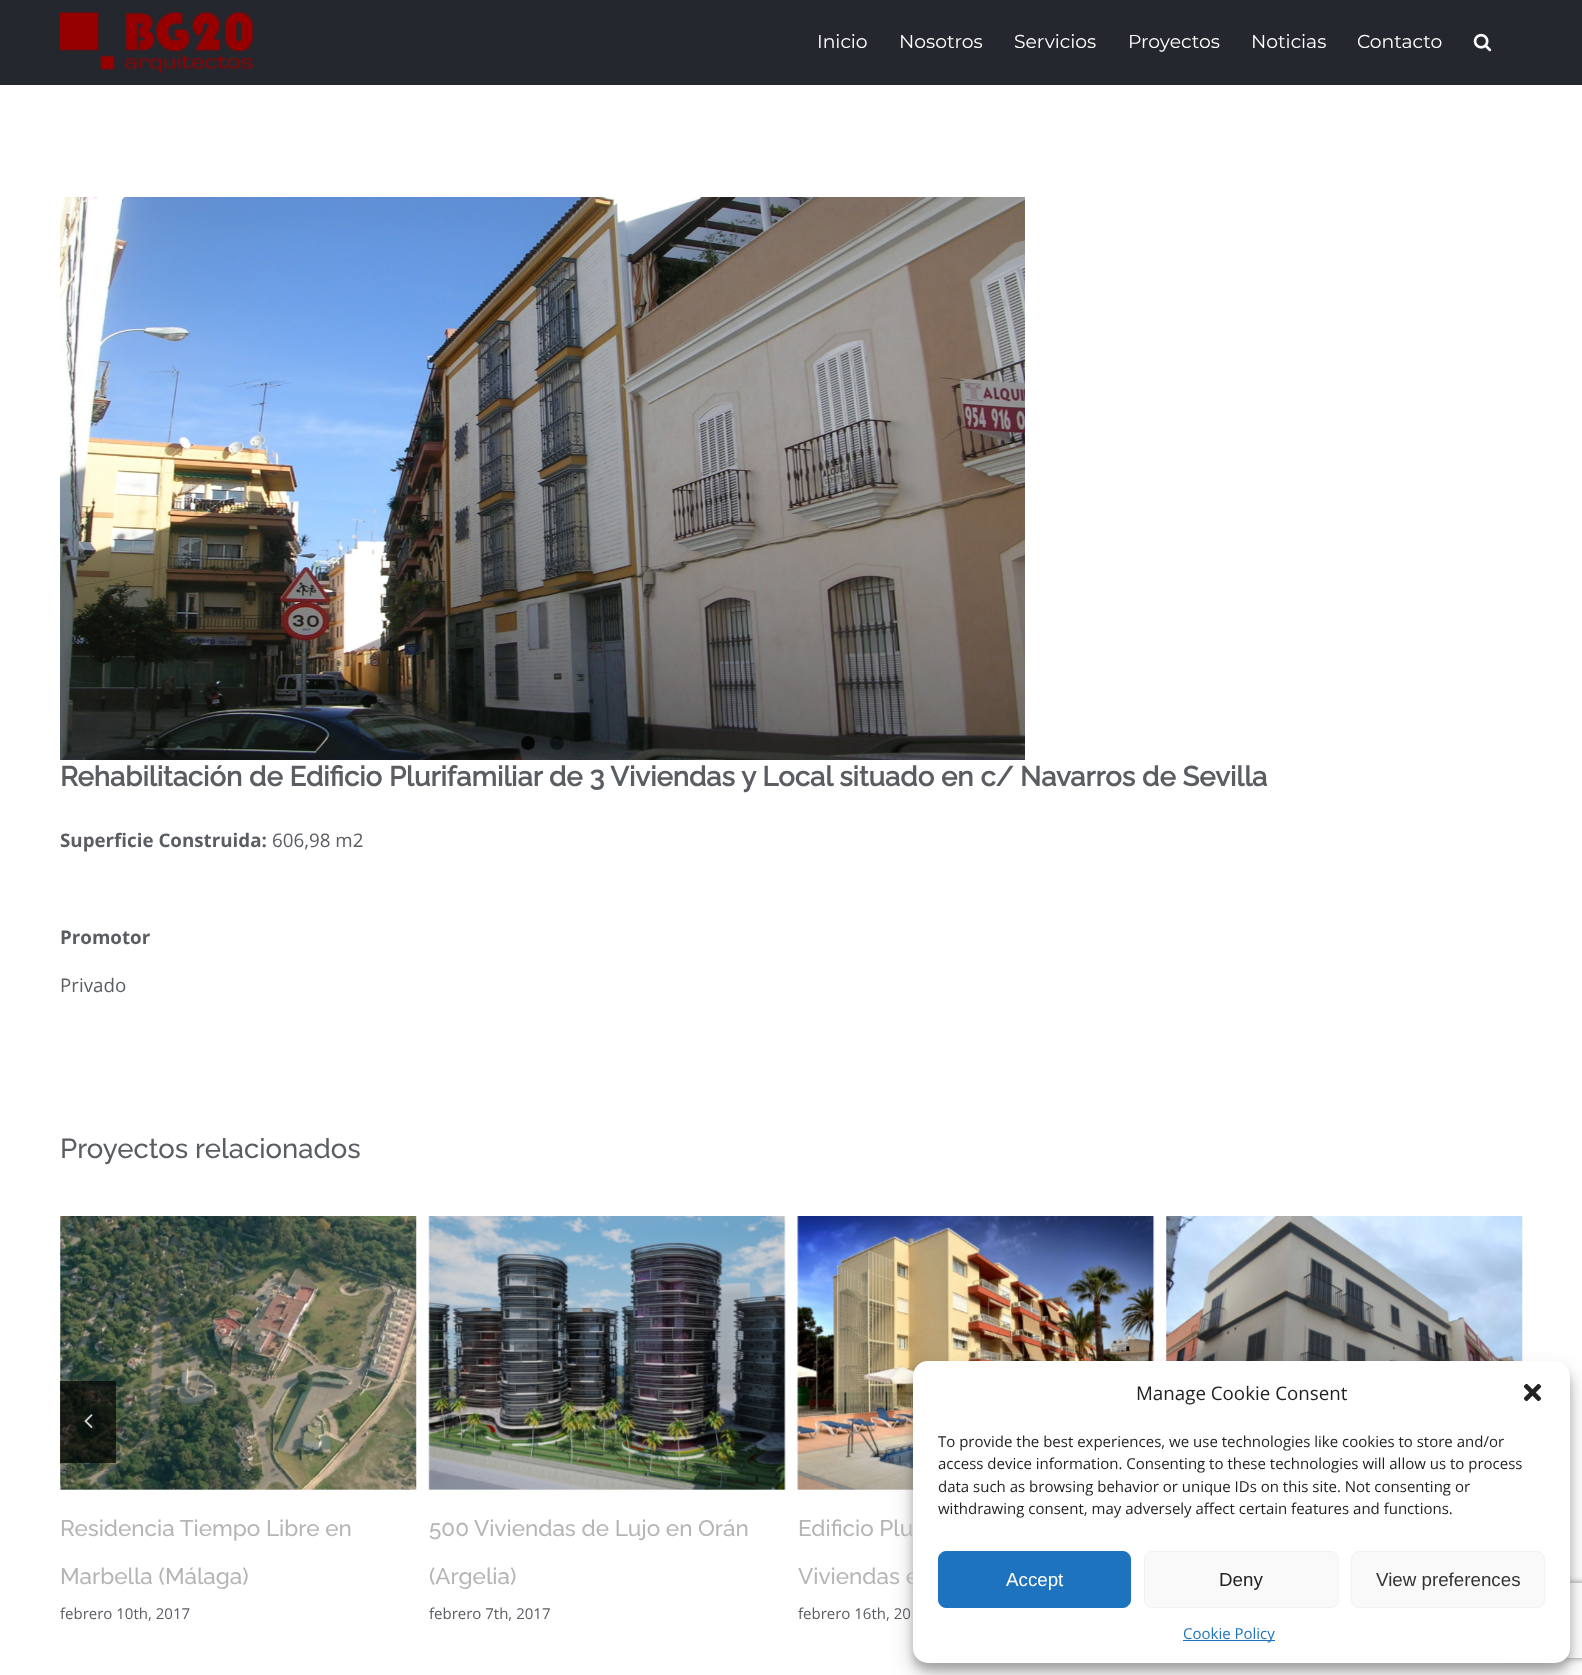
(async () => {
  const canvas = document.querySelector("canvas");
  canvas.width = 1582;
  canvas.height = 1675;
  const ctx = canvas.getContext("2d");
  ctx.miterLimit = 4;
  ctx.fontKerning = "normal";
  async function loadImage(src) {
    const img = new Image();
    img.src = src;
    await img.decode();
    return img;
  }
  let path;

  ctx.fillStyle = "#ffffff";
  ctx.fillRect(0, 0, 1582, 1675);
  ctx.fillStyle = "#24272d";
  ctx.fillRect(0, 0, 1582, 85);
  ctx.drawImage(await loadImage("img/1.png"), 60, 12, 193, 61);
  ctx.drawImage(await loadImage("img/2.png"), 1473, 33, 19, 19);
  ctx.drawImage(await loadImage("img/3.png"), 60, 197, 965, 563);
  ctx.fillStyle = "rgba(0, 0, 0, 0.85)";
  ctx.beginPath();
  ctx.arc(528, 743, 7, 0, Math.PI * 2);
  ctx.fill();
  ctx.fillStyle = "rgba(0, 0, 0, 0.5)";
  ctx.beginPath();
  ctx.arc(557, 743, 7, 0, Math.PI * 2);
  ctx.fill();
  ctx.drawImage(await loadImage("img/6.png"), 60, 1216, 357, 274);
  ctx.fillStyle = "rgba(0, 0, 0, 0.68)";
  ctx.fillRect(60, 1381, 56, 82);
  ctx.drawImage(await loadImage("img/4.png"), 84, 1414, 9, 14);
  ctx.drawImage(await loadImage("img/5.png"), 1166, 1216, 357, 145);
  ctx.drawImage(await loadImage("img/7.png"), 428, 1216, 358, 274);
  ctx.drawImage(await loadImage("img/8.png"), 797, 1216, 358, 274);
  ctx.fillStyle = "rgba(0, 0, 0, 0.23)";
  ctx.filter = "blur(4px)";
  ctx.beginPath();
  ctx.roundRect(913, 1369, 657, 301, 15);
  ctx.fill();
  ctx.filter = "none";
  ctx.fillStyle = "rgba(0, 0, 0, 0.19)";
  ctx.filter = "blur(12.5px)";
  ctx.beginPath();
  ctx.roundRect(913, 1374, 657, 301, 15);
  ctx.fill();
  ctx.filter = "none";
  ctx.save();
  path = new Path2D("M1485 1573H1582V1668H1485ZM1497.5 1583H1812.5C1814 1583 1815 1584 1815 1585.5V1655.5C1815 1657 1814 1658 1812.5 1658H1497.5C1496 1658 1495 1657 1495 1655.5V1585.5C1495 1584 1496 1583 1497.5 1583Z");
  ctx.clip(path, "evenodd");
  ctx.fillStyle = "#808080";
  ctx.filter = "blur(3px)";
  ctx.beginPath();
  ctx.roundRect(1495, 1583, 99, 75, 2.5);
  ctx.fill();
  ctx.filter = "none";
  ctx.restore();
  ctx.font = "100 18.75px Montserrat";
  ctx.fillStyle = "#ffffff";
  for (const [text, x, y] of [
    ["Inicio", 817, 48],
    ["Nosotros", 899, 48],
    ["Servicios", 1014, 48],
    ["Proyectos", 1128, 48],
    ["Noticias", 1251, 48],
    ["Contacto", 1357, 48],
  ]) {
    ctx.fillText(text, x, y);
  }
  ctx.font = "bold 27.5px Raleway";
  ctx.fillStyle = "#5a5d62";
  ctx.fillText("Rehabilitación de Edificio Plurifamiliar de 3 Viviendas y Local situado en c/ Navarros de Sevilla", 60, 786);
  ctx.font = "bold 18.75px Open Sans";
  ctx.fillText("Superficie Construida:", 60, 847);
  ctx.font = "18.75px Open Sans";
  ctx.fillText("606,98 m2", 272, 847);
  ctx.font = "bold 18.75px Open Sans";
  ctx.fillText("Promotor", 60, 944);
  ctx.font = "18.75px Open Sans";
  ctx.fillText("Privado", 60, 992);
  ctx.font = "100 27.5px Raleway";
  ctx.fillText("Proyectos relacionados", 60, 1158);
  ctx.font = "100 22.5px Raleway";
  ctx.fillStyle = "#b5b5b5";
  ctx.fillText("Residencia Tiempo Libre en", 60, 1536);
  ctx.fillText("Marbella (Málaga)", 60, 1584);
  ctx.font = "15px Open Sans";
  ctx.fillStyle = "#5a5d62";
  ctx.fillText("febrero 10th, 2017", 60, 1619);
  ctx.font = "100 22.5px Raleway";
  ctx.fillStyle = "#b5b5b5";
  ctx.fillText("500 Viviendas de Lujo en Orán", 429, 1536);
  ctx.fillText("(Argelia)", 429, 1584);
  ctx.font = "15px Open Sans";
  ctx.fillStyle = "#5a5d62";
  ctx.fillText("febrero 7th, 2017", 429, 1619);
  ctx.font = "100 22.5px Raleway";
  ctx.fillStyle = "#b5b5b5";
  ctx.fillText("Edificio Plu", 798, 1536);
  ctx.fillText("Viviendas e", 798, 1584);
  ctx.font = "15px Open Sans";
  ctx.fillStyle = "#5a5d62";
  ctx.fillText("febrero 16th, 20", 798, 1619);
  ctx.fillStyle = "#ffffff";
  ctx.beginPath();
  ctx.roundRect(913, 1361, 657, 302, 15);
  ctx.fill();
  ctx.font = "18.75px Open Sans";
  ctx.fillStyle = "#222222";
  ctx.fillText("Manage Cookie Consent", 1136, 1400);
  ctx.drawImage(await loadImage("img/9.png"), 1523, 1383, 19, 19);
  ctx.font = "15px Open Sans";
  for (const [text, x, y] of [
    ["To provide the best experiences, we use technologies like cookies to store and/or", 938, 1447],
    ["access device information. Consenting to these technologies will allow us to process", 938, 1469],
    ["data such as browsing behavior or unique IDs on this site. Not consenting or", 938, 1492],
    ["withdrawing consent, may adversely affect certain features and functions.", 938, 1514],
  ]) {
    ctx.fillText(text, x, y);
  }
  ctx.fillStyle = "#1e73be";
  ctx.beginPath();
  ctx.roundRect(938.5, 1551.5, 192, 56, 7.5);
  ctx.fill();
  ctx.strokeStyle = "#1e73be";
  ctx.stroke();
  ctx.font = "18.75px Liberation Sans";
  ctx.fillStyle = "#ffffff";
  ctx.fillText("Accept", 1006, 1586);
  ctx.fillStyle = "#f9f9f9";
  ctx.beginPath();
  ctx.roundRect(1144.5, 1551.5, 194, 56, 7.5);
  ctx.fill();
  ctx.strokeStyle = "#f2f2f2";
  ctx.stroke();
  ctx.fillStyle = "#222222";
  ctx.fillText("Deny", 1219, 1586);
  ctx.fillStyle = "#f9f9f9";
  ctx.beginPath();
  ctx.roundRect(1351.5, 1551.5, 193, 56, 7.5);
  ctx.fill();
  ctx.stroke();
  ctx.fillStyle = "#333333";
  ctx.fillText("View preferences", 1376, 1586);
  ctx.fillStyle = "#1e73be";
  ctx.fillRect(1183, 1640, 92, 1);
  ctx.font = "15px Open Sans";
  ctx.fillText("Cookie Policy", 1183, 1639);
})();
